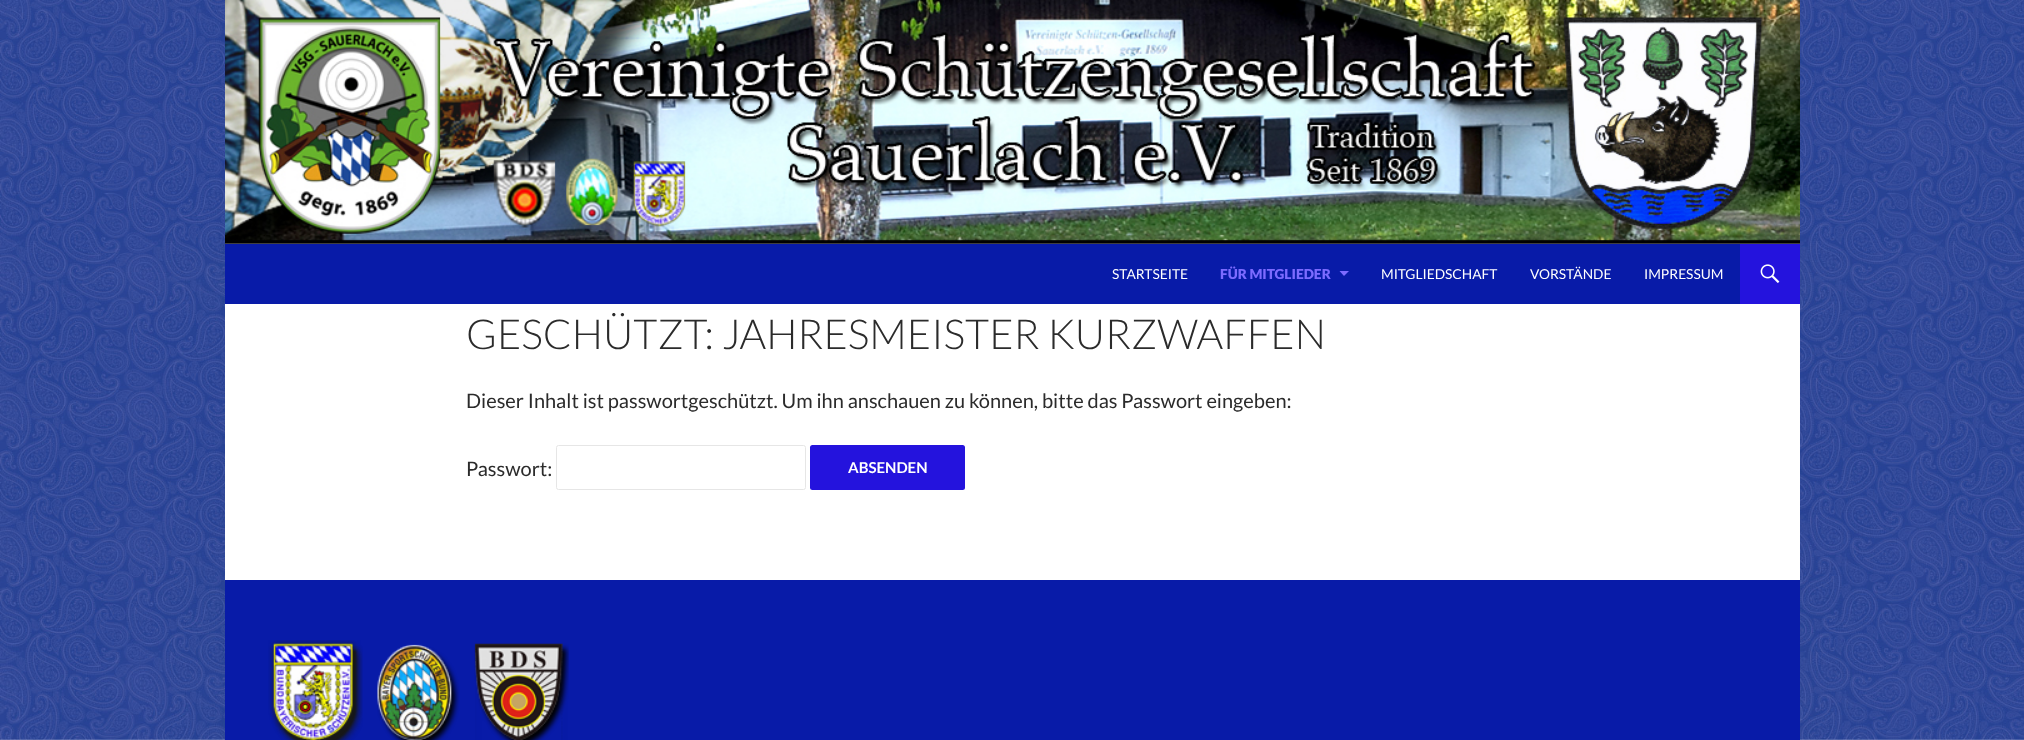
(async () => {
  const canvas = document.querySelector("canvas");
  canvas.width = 2024;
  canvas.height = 740;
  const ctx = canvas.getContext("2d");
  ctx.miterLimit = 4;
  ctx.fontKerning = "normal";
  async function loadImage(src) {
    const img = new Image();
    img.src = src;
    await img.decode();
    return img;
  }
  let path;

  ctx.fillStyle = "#ffffff";
  ctx.fillRect(0, 0, 2024, 740);
  ctx.drawImage(await loadImage("img/1.png"), 0, 0, 2024, 740);
  ctx.fillRect(225, 243, 1575, 337);
  ctx.drawImage(await loadImage("img/2.png"), 225, 0, 1575, 244);
  ctx.fillStyle = "#081ba8";
  ctx.fillRect(225, 244, 1515, 60);
  ctx.fillStyle = "#7c6bff";
  path = new Path2D("M1339.5 271L1344 276L1349 271Z");
  ctx.fill(path);
  ctx.fillStyle = "#2413dd";
  ctx.fillRect(1740, 244, 60, 60);
  ctx.drawImage(await loadImage("img/3.png"), 1760, 264, 20, 19);
  ctx.beginPath();
  ctx.roundRect(556.5, 445.5, 249, 44, 2);
  ctx.strokeStyle = "#e6e6e6";
  ctx.stroke();
  ctx.beginPath();
  ctx.roundRect(810, 445, 155, 45, 2.5);
  ctx.fill();
  ctx.fillStyle = "#081ba8";
  ctx.fillRect(225, 580, 1575, 160);
  ctx.drawImage(await loadImage("img/4.png"), 268, 640, 95, 100);
  ctx.drawImage(await loadImage("img/5.png"), 377, 644, 83, 96);
  ctx.drawImage(await loadImage("img/6.png"), 474, 643, 95, 97);
  ctx.font = "13.75px Lato";
  ctx.fillStyle = "#ffffff";
  ctx.fillText("STARTSEITE", 1112, 279);
  ctx.font = "900 13.75px Lato";
  ctx.fillStyle = "#7c6bff";
  ctx.fillText("FÜR MITGLIEDER", 1220, 279);
  ctx.font = "13.75px Lato";
  ctx.fillStyle = "#ffffff";
  for (const [text, x, y] of [
    ["MITGLIEDSCHAFT", 1381, 279],
    ["VORSTÄNDE", 1530, 279],
    ["IMPRESSUM", 1644, 279],
  ]) {
    ctx.fillText(text, x, y);
  }
  ctx.font = "300 41.25px Lato";
  ctx.fillStyle = "#2b2b2b";
  ctx.fillText("GESCHÜTZT: JAHRESMEISTER KURZWAFFEN", 466, 349);
  ctx.font = "20px Lato";
  ctx.fillText("Dieser Inhalt ist passwortgeschützt. Um ihn anschauen zu können, bitte das Passwort eingeben:", 466, 408);
  ctx.fillText("Passwort:", 466, 476);
  ctx.font = "bold 15px Lato";
  ctx.fillStyle = "#ffffff";
  ctx.fillText("ABSENDEN", 848, 473);
})();
